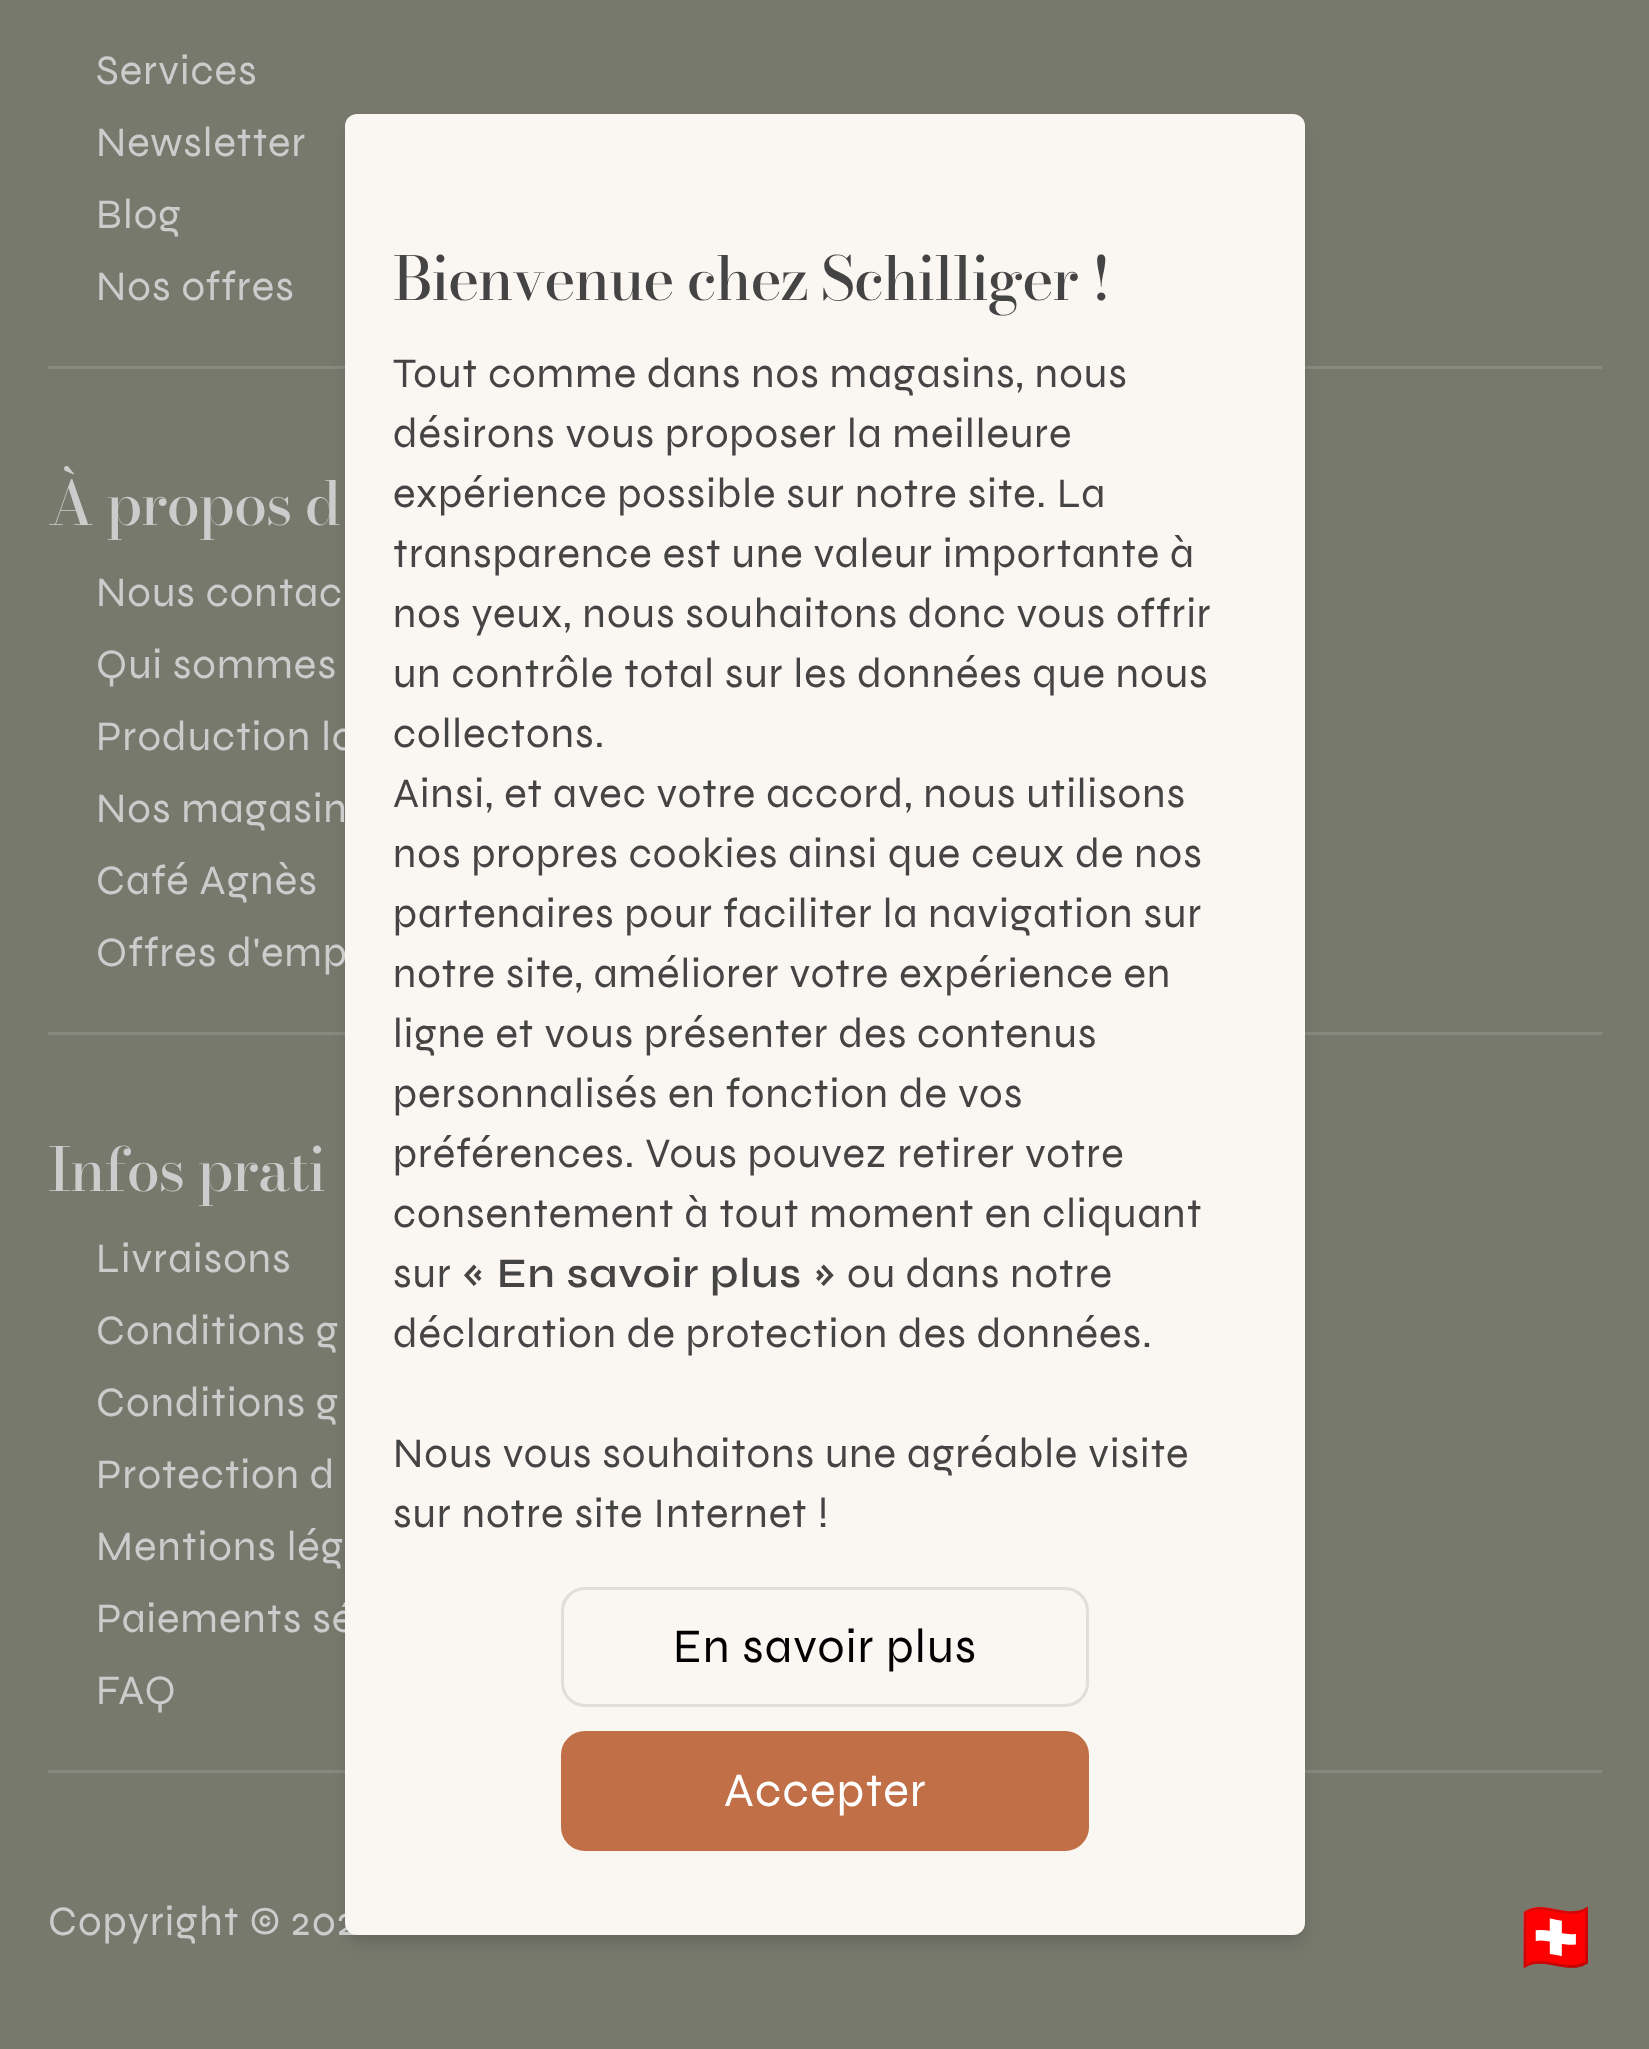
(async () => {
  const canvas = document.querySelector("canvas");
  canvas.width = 1649;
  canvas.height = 2049;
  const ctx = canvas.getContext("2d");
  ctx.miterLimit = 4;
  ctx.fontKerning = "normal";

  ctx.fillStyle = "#76796c";
  ctx.fillRect(0, 0, 1649, 2049);
  for (const [x, y, w, h, color] of [
    [48, 366, 1554, 3, "#878a7f"],
    [48, 1032, 1554, 3, "#878a7f"],
    [48, 1770, 1554, 3, "#878a7f"],
  ]) {
    ctx.fillStyle = color;
    ctx.fillRect(x, y, w, h);
  }
  ctx.fillStyle = "rgba(0, 0, 0, 0.1)";
  ctx.filter = "blur(6px)";
  ctx.beginPath();
  ctx.roundRect(351, 126, 948, 1809, 6);
  ctx.fill();
  ctx.filter = "none";
  ctx.filter = "blur(9px)";
  ctx.beginPath();
  ctx.roundRect(348, 129, 954, 1815, 9);
  ctx.fill();
  ctx.filter = "none";
  ctx.letterSpacing = "1.05px";
  ctx.font = "42px Syne";
  ctx.fillStyle = "#cccccc";
  for (const [text, x, y] of [
    ["Services", 96, 84],
    ["Newsletter", 96, 156],
    ["Blog", 96, 228],
    ["Nos offres", 96, 300],
  ]) {
    ctx.fillText(text, x, y);
  }
  ctx.letterSpacing = "-1.5px";
  ctx.font = "500 60px Bodoni Moda";
  ctx.fillText("À propos d", 48, 525);
  ctx.letterSpacing = "1.05px";
  ctx.font = "42px Syne";
  for (const [text, x, y] of [
    ["Nous contac", 96, 606],
    ["Qui sommes", 96, 678],
    ["Production lo", 96, 750],
    ["Nos magasin", 96, 822],
    ["Café Agnès", 96, 894],
    ["Offres d'emp", 96, 966],
  ]) {
    ctx.fillText(text, x, y);
  }
  ctx.letterSpacing = "-1.5px";
  ctx.font = "500 60px Bodoni Moda";
  ctx.fillText("Infos prati", 48, 1191);
  ctx.letterSpacing = "1.05px";
  ctx.font = "42px Syne";
  for (const [text, x, y] of [
    ["Livraisons", 96, 1272],
    ["Conditions g", 96, 1344],
    ["Conditions g", 96, 1416],
    ["Protection d", 96, 1488],
    ["Mentions lég", 96, 1560],
    ["Paiements sé", 96, 1632],
    ["FAQ", 96, 1704],
    ["Copyright © 202", 48, 1935],
  ]) {
    ctx.fillText(text, x, y);
  }
  ctx.font = "72px Noto Color Emoji";
  ctx.fillText("🇨🇭", 1511, 1962);
  ctx.fillStyle = "#faf6f2";
  ctx.beginPath();
  ctx.roundRect(345, 114, 960, 1821, 12);
  ctx.fill();
  ctx.letterSpacing = "-1.5px";
  ctx.font = "500 60px Bodoni Moda";
  ctx.fillStyle = "#444444";
  ctx.fillText("Bienvenue chez Schilliger !", 393, 300);
  ctx.letterSpacing = "1.05px";
  ctx.font = "42px Syne";
  for (const [text, x, y] of [
    ["Tout comme dans nos magasins, nous", 393, 387],
    ["désirons vous proposer la meilleure", 393, 447],
    ["expérience possible sur notre site. La", 393, 507],
    ["transparence est une valeur importante à", 393, 567],
    ["nos yeux, nous souhaitons donc vous offrir", 393, 627],
    ["un contrôle total sur les données que nous", 393, 687],
    ["collectons.", 393, 747],
    ["Ainsi, et avec votre accord, nous utilisons", 393, 807],
    ["nos propres cookies ainsi que ceux de nos", 393, 867],
    ["partenaires pour faciliter la navigation sur", 393, 927],
    ["notre site, améliorer votre expérience en", 393, 987],
    ["ligne et vous présenter des contenus", 393, 1047],
    ["personnalisés en fonction de vos", 393, 1107],
    ["préférences. Vous pouvez retirer votre", 393, 1167],
    ["consentement à tout moment en cliquant", 393, 1227],
    ["sur", 393, 1287],
  ]) {
    ctx.fillText(text, x, y);
  }
  ctx.font = "600 42px Syne";
  ctx.fillText("« En savoir plus »", 462, 1287);
  ctx.font = "42px Syne";
  for (const [text, x, y] of [
    ["ou dans notre", 847, 1287],
    ["déclaration de protection des données.", 393, 1347],
    ["Nous vous souhaitons une agréable visite", 393, 1467],
    ["sur notre site Internet !", 393, 1527],
  ]) {
    ctx.fillText(text, x, y);
  }
  ctx.beginPath();
  ctx.roundRect(562.5, 1588.5, 525, 117, 22.5);
  ctx.strokeStyle = "#e1ddda";
  ctx.lineWidth = 3;
  ctx.stroke();
  ctx.letterSpacing = "1.25px";
  ctx.font = "48px Syne";
  ctx.fillStyle = "#000000";
  ctx.fillText("En savoir plus", 673, 1662);
  ctx.fillStyle = "#c16f47";
  ctx.beginPath();
  ctx.roundRect(562.5, 1732.5, 525, 117, 22.5);
  ctx.fill();
  ctx.strokeStyle = "#c16f47";
  ctx.stroke();
  ctx.fillStyle = "#ffffff";
  ctx.fillText("Accepter", 724, 1806);
})();
